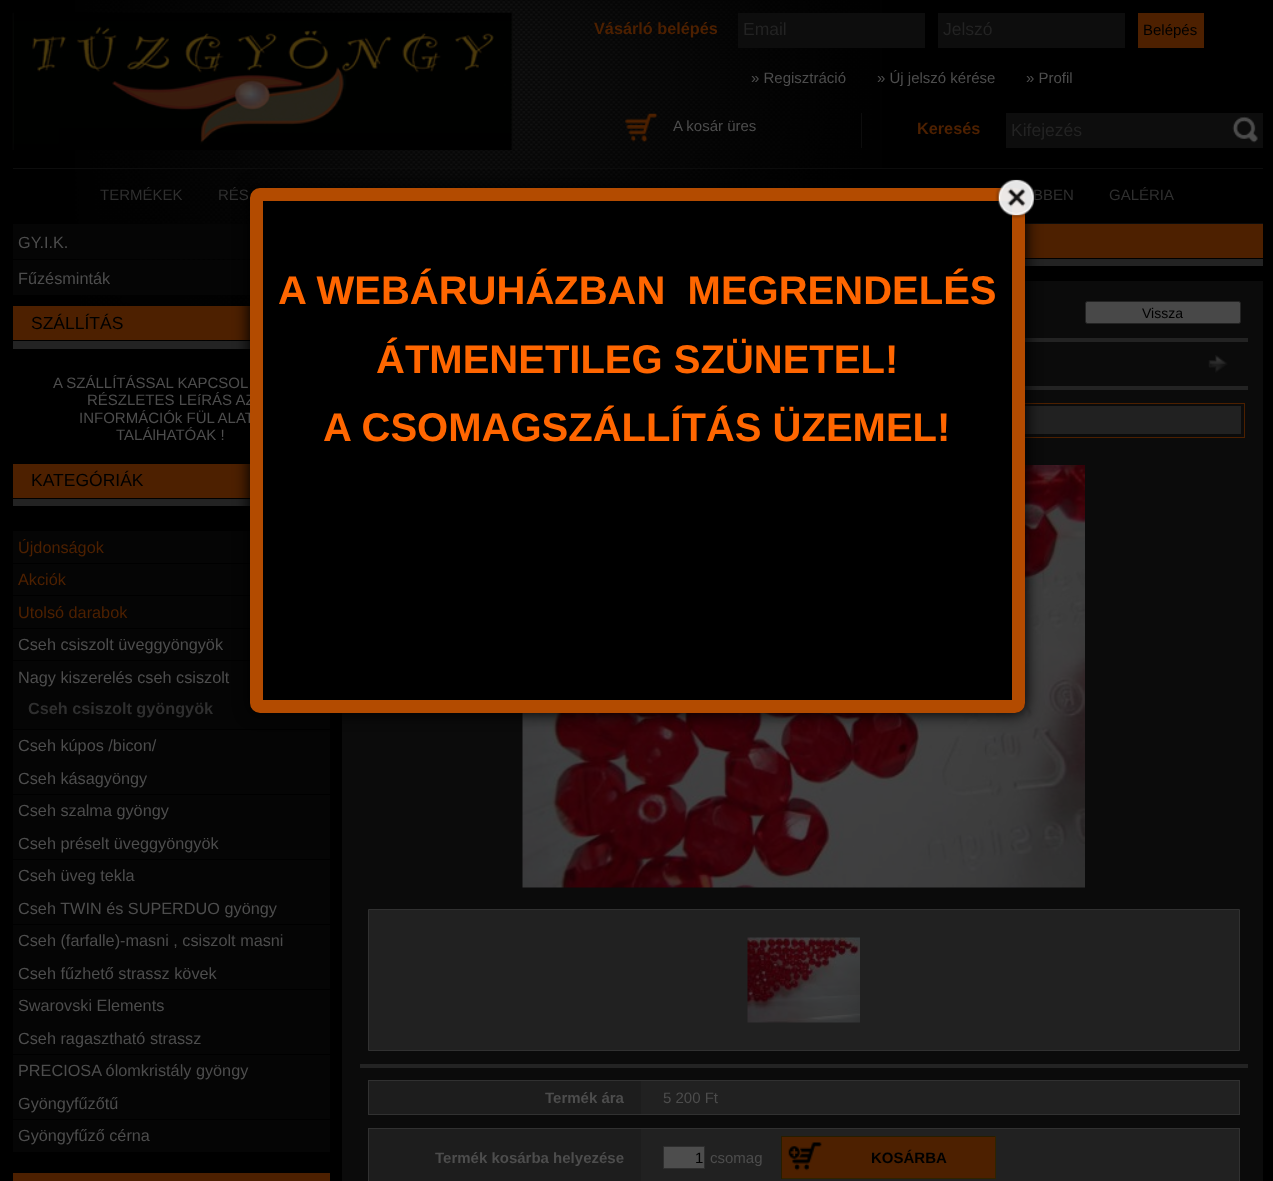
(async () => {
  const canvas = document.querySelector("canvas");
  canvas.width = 1273;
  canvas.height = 1181;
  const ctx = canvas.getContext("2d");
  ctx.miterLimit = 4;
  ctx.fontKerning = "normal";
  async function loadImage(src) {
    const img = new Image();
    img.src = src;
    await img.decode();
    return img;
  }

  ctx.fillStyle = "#000000";
  ctx.fillRect(0, 0, 1273, 1181);
  ctx.drawImage(await loadImage("img/1.png"), 75, 0, 807, 350);
  ctx.drawImage(await loadImage("img/2.png"), 12, 12, 501, 138);
  for (const [x, y, w, h, color] of [
    [738, 13, 187, 35, "#0d0d0d"],
    [938, 13, 187, 35, "#0d0d0d"],
    [1138, 13, 66, 35, "#4d2000"],
    [861, 113, 1, 35, "#0d0d0d"],
  ]) {
    ctx.fillStyle = color;
    ctx.fillRect(x, y, w, h);
  }
  ctx.drawImage(await loadImage("img/3.png"), 624, 113, 34, 29);
  ctx.fillRect(1006, 113, 257, 35);
  ctx.drawImage(await loadImage("img/4.png"), 1232, 116, 26, 27);
  for (const [x, y, w, h, color] of [
    [13, 168, 1250, 1, "#0d0d0d"],
    [342, 223, 921, 958, "#0b0b0b"],
    [13, 224, 237, 35, "#050505"],
    [13, 260, 237, 35, "#050505"],
    [13, 306, 237, 34, "#4d2000"],
    [13, 341, 237, 8, "#232323"],
    [13, 464, 237, 34, "#4d2000"],
    [13, 499, 237, 7, "#232323"],
    [13, 531, 237, 32, "#050505"],
    [13, 564, 237, 31, "#050505"],
    [13, 596, 237, 32, "#050505"],
    [13, 629, 237, 31, "#050505"],
    [13, 661, 317, 68, "#050505"],
    [13, 730, 317, 64, "#050505"],
    [13, 795, 317, 64, "#050505"],
    [13, 860, 317, 64, "#050505"],
    [13, 925, 317, 64, "#050505"],
    [13, 990, 317, 64, "#050505"],
    [13, 1055, 317, 64, "#050505"],
    [13, 1120, 317, 32, "#050505"],
    [13, 1173, 317, 8, "#4d2000"],
    [1025, 224, 238, 34, "#4d2000"],
    [1025, 258, 238, 1, "#000000"],
    [1025, 259, 238, 7, "#232323"],
    [1025, 266, 238, 15, "#000000"],
  ]) {
    ctx.fillStyle = color;
    ctx.fillRect(x, y, w, h);
  }
  ctx.fillStyle = "#484848";
  ctx.beginPath();
  ctx.roundRect(1085.5, 301.5, 155, 22, 2);
  ctx.fill();
  ctx.strokeStyle = "#232323";
  ctx.stroke();
  ctx.fillStyle = "#232323";
  ctx.fillRect(1025, 338, 223, 4);
  ctx.drawImage(await loadImage("img/5.png"), 1208, 355, 20, 18);
  ctx.fillRect(1025, 386, 223, 4);
  ctx.strokeStyle = "#4d2000";
  ctx.strokeRect(363.5, 403.5, 881, 34);
  ctx.fillStyle = "#212121";
  ctx.fillRect(1025, 406, 216, 28);
  ctx.drawImage(await loadImage("img/6.png"), 522, 465, 563, 423);
  ctx.beginPath();
  ctx.rect(368.5, 909.5, 871, 141);
  ctx.fill();
  ctx.strokeStyle = "#313131";
  ctx.stroke();
  ctx.drawImage(await loadImage("img/7.png"), 747, 937, 113, 86);
  ctx.fillStyle = "#232323";
  ctx.fillRect(360, 1064, 888, 4);
  ctx.strokeRect(368.5, 1080.5, 871, 34);
  ctx.fillStyle = "#1d1d1d";
  ctx.fillRect(369, 1081, 272, 33);
  ctx.fillStyle = "#212121";
  ctx.fillRect(641, 1081, 598, 33);
  ctx.strokeRect(368.5, 1128.5, 871, 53);
  ctx.fillStyle = "#1d1d1d";
  ctx.fillRect(369, 1129, 272, 52);
  ctx.fillStyle = "#212121";
  ctx.fillRect(641, 1129, 598, 52);
  ctx.fillStyle = "#4d4d4d";
  ctx.beginPath();
  ctx.rect(663.5, 1146.5, 41, 22);
  ctx.fill();
  ctx.strokeStyle = "#2e2e2e";
  ctx.stroke();
  ctx.fillStyle = "#4d2000";
  ctx.fillRect(782, 1137, 213, 41);
  ctx.drawImage(await loadImage("img/8.png"), 788, 1142, 34, 29);
  for (const [x, y, w, h, color] of [
    [781, 1136, 215, 1, "#261d00"],
    [995, 1136, 1, 43, "#2f2300"],
    [781, 1178, 215, 1, "#2f2300"],
    [781, 1136, 1, 43, "#261d00"],
  ]) {
    ctx.fillStyle = color;
    ctx.fillRect(x, y, w, h);
  }
  ctx.fillStyle = "#000000";
  ctx.filter = "blur(7.5px)";
  ctx.beginPath();
  ctx.roundRect(249, 186, 777, 528, 11);
  ctx.fill();
  ctx.filter = "none";
  ctx.font = "bold 16.25px Liberation Sans";
  ctx.fillStyle = "#4d2000";
  ctx.fillText("Vásárló belépés", 594, 34);
  ctx.font = "17.5px Liberation Sans";
  ctx.fillStyle = "#232323";
  ctx.fillText("Email", 743, 35);
  ctx.fillText("Jelszó", 943, 35);
  ctx.font = "15px Liberation Sans";
  ctx.fillStyle = "#000000";
  ctx.fillText("Belépés", 1143, 35);
  ctx.fillStyle = "#4d4d4d";
  for (const [text, x, y] of [
    ["» Regisztráció", 751, 83],
    ["» Új jelszó kérése", 877, 83],
    ["» Profil", 1026, 83],
    ["A kosár üres", 673, 131],
  ]) {
    ctx.fillText(text, x, y);
  }
  ctx.font = "bold 16.25px Liberation Sans";
  ctx.fillStyle = "#4d2000";
  ctx.fillText("Keresés", 917, 134);
  ctx.font = "17.5px Liberation Sans";
  ctx.fillStyle = "#232323";
  ctx.fillText("Kifejezés", 1011, 136);
  ctx.font = "15px Liberation Sans";
  ctx.fillStyle = "#2f2f2f";
  for (const [text, x, y] of [
    ["TERMÉKEK", 100, 200],
    ["RÉS", 218, 200],
    ["BBEN", 1033, 200],
    ["GALÉRIA", 1109, 200],
  ]) {
    ctx.fillText(text, x, y);
  }
  ctx.font = "16.25px Liberation Sans";
  ctx.fillStyle = "#4d4d4d";
  ctx.fillText("GY.I.K.", 18, 248);
  ctx.fillText("Fűzésminták", 18, 284);
  ctx.font = "17.5px Liberation Sans";
  ctx.fillStyle = "#000000";
  ctx.fillText("SZÁLLÍTÁS", 31, 329);
  ctx.font = "15px Liberation Sans";
  ctx.fillStyle = "#4d4d4d";
  for (const [text, x, y] of [
    ["A SZÁLLÍTÁSSAL KAPCSOL", 53, 388],
    ["RÉSZLETES LEíRÁS AZ", 87, 405],
    ["INFORMÁCIÓk FÜL ALAT", 79, 423],
    ["TALÁlHATÓAK !", 116, 440],
  ]) {
    ctx.fillText(text, x, y);
  }
  ctx.font = "17.5px Liberation Sans";
  ctx.fillStyle = "#000000";
  ctx.fillText("KATEGÓRIÁK", 31, 486);
  ctx.font = "16.25px Liberation Sans";
  ctx.fillStyle = "#4d2000";
  for (const [text, x, y] of [
    ["Újdonságok", 18, 553],
    ["Akciók", 18, 585],
    ["Utolsó darabok", 18, 618],
  ]) {
    ctx.fillText(text, x, y);
  }
  ctx.fillStyle = "#4d4d4d";
  ctx.fillText("Cseh csiszolt üveggyöngyök", 18, 650);
  ctx.fillText("Nagy kiszerelés cseh csiszolt", 18, 683);
  ctx.font = "bold 16.25px Liberation Sans";
  ctx.fillStyle = "#2f2f2f";
  ctx.fillText("Cseh csiszolt gyöngyök", 28, 714);
  ctx.font = "16.25px Liberation Sans";
  ctx.fillStyle = "#4d4d4d";
  for (const [text, x, y] of [
    ["Cseh kúpos /bicon/", 18, 751],
    ["Cseh kásagyöngy", 18, 784],
    ["Cseh szalma gyöngy", 18, 816],
    ["Cseh préselt üveggyöngyök", 18, 849],
    ["Cseh üveg tekla", 18, 881],
    ["Cseh TWIN és SUPERDUO gyöngy", 18, 914],
    ["Cseh (farfalle)-masni , csiszolt masni", 18, 946],
    ["Cseh fűzhető strassz kövek", 18, 979],
    ["Swarovski Elements", 18, 1011],
    ["Cseh ragasztható strassz", 18, 1044],
    ["PRECIOSA ólomkristály gyöngy", 18, 1076],
    ["Gyöngyfűzőtű", 18, 1109],
    ["Gyöngyfűző cérna", 18, 1141],
  ]) {
    ctx.fillText(text, x, y);
  }
  ctx.font = "14px Liberation Sans";
  ctx.fillStyle = "#000000";
  ctx.fillText("Vissza", 1142, 318);
  ctx.font = "bold 15px Liberation Sans";
  ctx.fillStyle = "#4d4d4d";
  ctx.fillText("Termék ára", 545, 1103);
  ctx.font = "15px Liberation Sans";
  ctx.fillText("5 200 Ft", 663, 1103);
  ctx.font = "bold 15px Liberation Sans";
  ctx.fillText("Termék kosárba helyezése", 435, 1163);
  ctx.font = "15px Liberation Sans";
  ctx.fillStyle = "#000000";
  ctx.fillText("1", 695, 1163);
  ctx.fillStyle = "#4d4d4d";
  ctx.fillText("csomag", 710, 1163);
  ctx.font = "bold 15px Liberation Sans";
  ctx.fillStyle = "#000000";
  ctx.fillText("KOSÁRBA", 871, 1163);
  ctx.beginPath();
  ctx.roundRect(250, 188, 775, 525, 10);
  ctx.fill();
  ctx.beginPath();
  ctx.roundRect(256.5, 194.5, 762, 512, 3.5);
  ctx.strokeStyle = "rgba(255, 107, 0, 0.7)";
  ctx.lineWidth = 13;
  ctx.stroke();
  ctx.drawImage(await loadImage("img/9.png"), 995, 179, 41, 40);
  ctx.font = "bold 40px Liberation Sans";
  ctx.fillStyle = "#ff6600";
  for (const [text, x, y] of [
    ["A WEBÁRUHÁZBAN  MEGRENDELÉS", 278, 304],
    ["ÁTMENETILEG SZÜNETEL!", 376, 373],
    ["A CSOMAGSZÁLLÍTÁS ÜZEMEL!", 323, 441],
  ]) {
    ctx.fillText(text, x, y);
  }
})();
